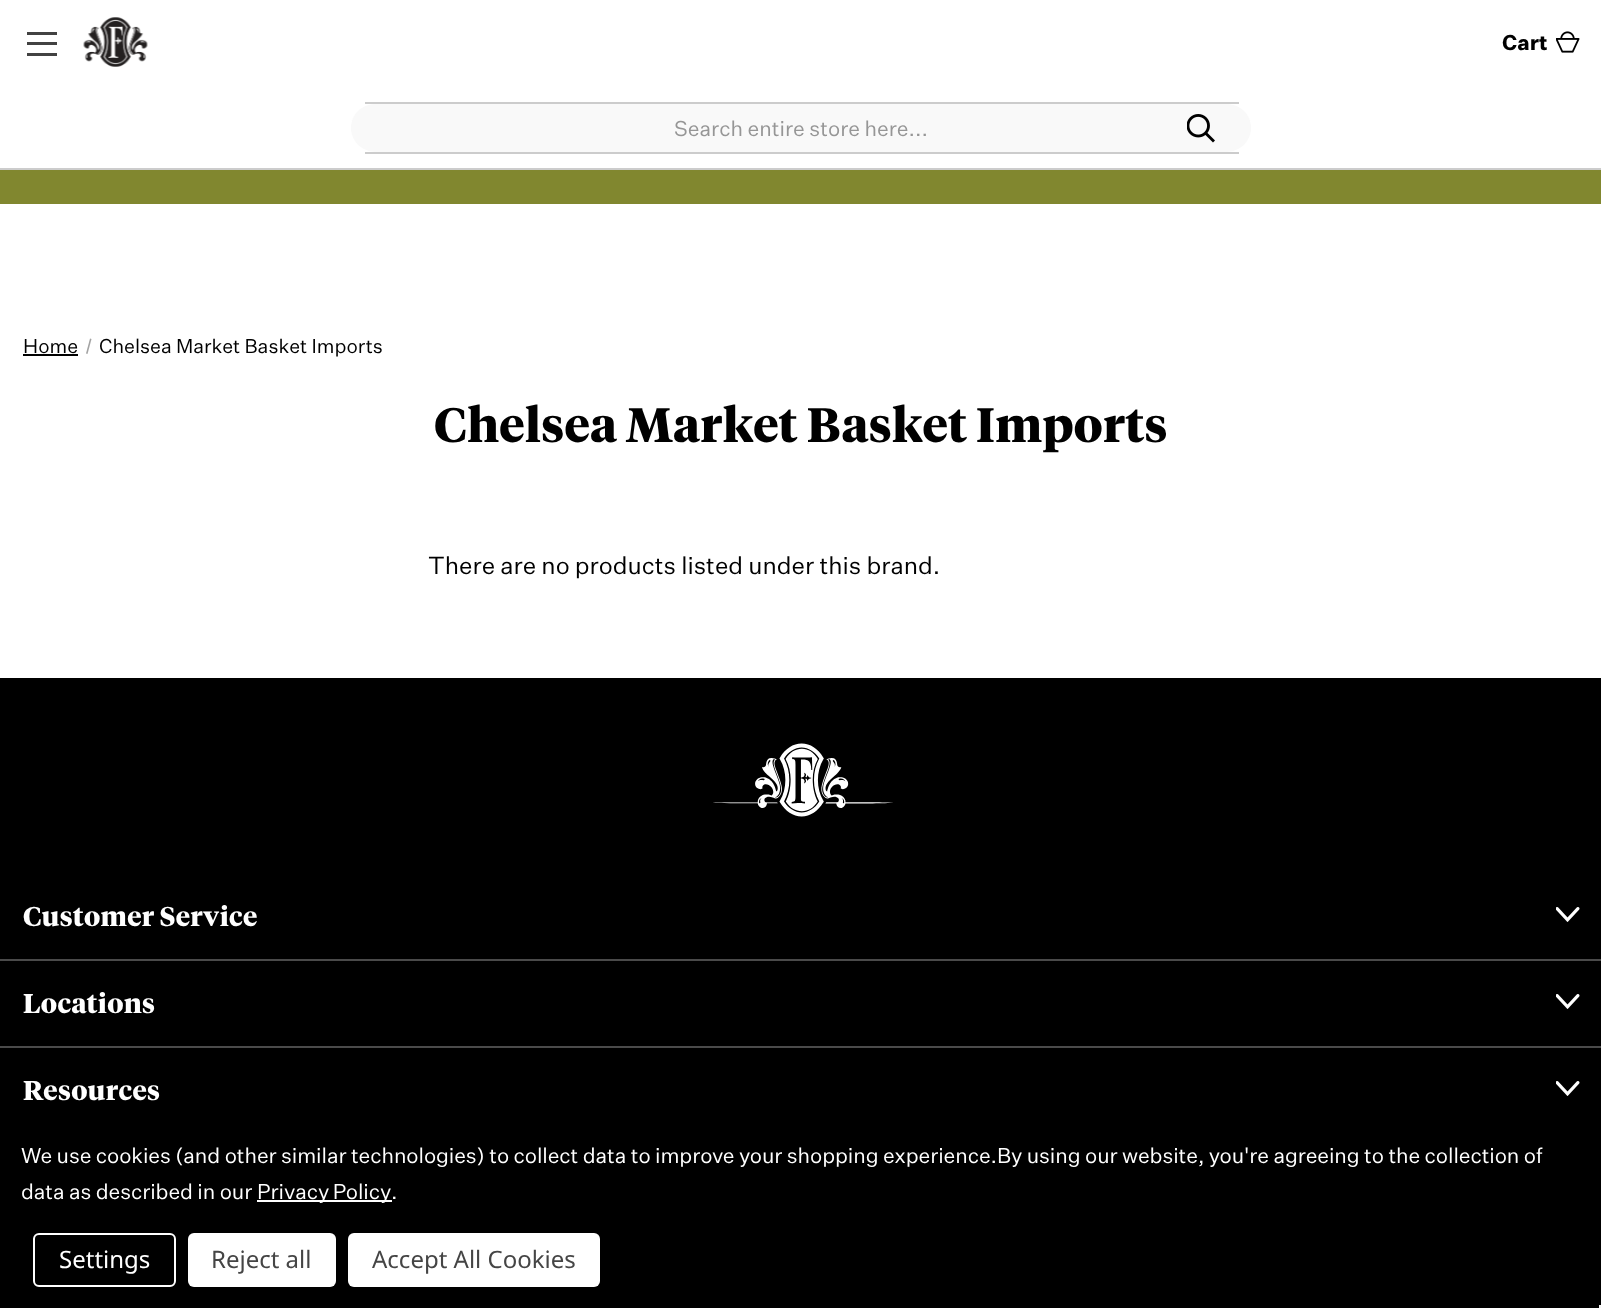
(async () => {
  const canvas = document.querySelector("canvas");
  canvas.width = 1601;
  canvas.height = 1308;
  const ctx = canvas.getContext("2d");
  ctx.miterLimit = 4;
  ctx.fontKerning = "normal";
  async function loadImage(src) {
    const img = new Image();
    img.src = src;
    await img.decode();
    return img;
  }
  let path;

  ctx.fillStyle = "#ffffff";
  ctx.fillRect(0, 0, 1601, 1308);
  for (const [x, y, w, h, color] of [
    [0, 168, 1601, 2, "#cccccc"],
    [27, 42, 30, 3, "#424242"],
    [27, 32, 30, 3, "#424242"],
    [27, 53, 30, 3, "#424242"],
  ]) {
    ctx.fillStyle = color;
    ctx.fillRect(x, y, w, h);
  }
  ctx.drawImage(await loadImage("img/1.png"), 83, 17, 65, 50);
  ctx.drawImage(await loadImage("img/2.png"), 1556, 31, 24, 22);
  ctx.fillStyle = "#f9f9f9";
  path = new Path2D("M376 104H1226C1240 104 1251 114 1251 128C1251 141 1240 152 1226 152H376C362 152 351 141 351 128C351 114 362 104 376 104Z");
  ctx.fill(path);
  ctx.fillStyle = "#cccccc";
  ctx.fillRect(365, 102, 874, 2);
  ctx.fillRect(365, 152, 874, 2);
  ctx.drawImage(await loadImage("img/3.png"), 1187, 114, 28, 29);
  ctx.fillStyle = "#81872f";
  ctx.fillRect(0, 170, 1601, 34);
  ctx.fillStyle = "#000000";
  ctx.fillRect(23, 354, 55, 2);
  ctx.fillStyle = "#a3a3a3";
  path = new Path2D("M90 338.5L91.5 339L87.5 354L86 353.5Z");
  ctx.fill(path);
  ctx.fillStyle = "#000000";
  ctx.fillRect(0, 678, 1601, 630);
  ctx.drawImage(await loadImage("img/4.png"), 713, 743, 180, 74);
  ctx.fillStyle = "#4a4a4a";
  ctx.fillRect(0, 959, 1601, 2);
  ctx.drawImage(await loadImage("img/5.png"), 1556, 907, 24, 15);
  ctx.fillRect(0, 1046, 1601, 2);
  ctx.drawImage(await loadImage("img/5.png"), 1556, 994, 24, 15);
  ctx.drawImage(await loadImage("img/5.png"), 1556, 1081, 24, 15);
  ctx.fillStyle = "#ffffff";
  ctx.fillRect(257, 1200, 135, 2);
  ctx.beginPath();
  ctx.roundRect(34, 1234, 141, 52, 5);
  ctx.strokeStyle = "#ffffff";
  ctx.lineWidth = 2;
  ctx.stroke();
  ctx.beginPath();
  ctx.roundRect(188, 1233, 148, 54, 6);
  ctx.fill();
  ctx.beginPath();
  ctx.roundRect(348, 1233, 252, 54, 6);
  ctx.fill();
  ctx.fillStyle = "#f5f5f5";
  ctx.fillRect(1599, 1305, 2, 3);
  ctx.font = "bold 21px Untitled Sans";
  ctx.fillStyle = "#000000";
  ctx.fillText("Cart", 1502, 50);
  ctx.font = "21px Untitled Sans";
  ctx.fillStyle = "#969696";
  ctx.fillText("Search entire store here...", 674, 136);
  ctx.font = "19.5px Untitled Sans";
  ctx.fillStyle = "#000000";
  ctx.fillText("Home", 23, 353);
  ctx.fillText("Chelsea Market Basket Imports", 99, 353);
  ctx.letterSpacing = "0.4px";
  ctx.font = "bold 48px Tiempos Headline";
  ctx.fillText("Chelsea Market Basket Imports", 434, 442);
  ctx.letterSpacing = "0px";
  ctx.font = "24px Untitled Sans";
  ctx.fillText("There are no products listed under this brand.", 428, 574);
  ctx.letterSpacing = "0.4px";
  ctx.font = "bold 27px Tiempos Headline";
  ctx.fillStyle = "#ffffff";
  for (const [text, x, y] of [
    ["Customer Service", 23, 926],
    ["Locations", 23, 1013],
    ["Resources", 23, 1100],
  ]) {
    ctx.fillText(text, x, y);
  }
  ctx.letterSpacing = "-0.08px";
  ctx.font = "21px Untitled Sans";
  ctx.fillText("We use cookies (and other similar technologies) to collect data to improve your shopping experience.By using our website, you're agreeing to the collection of", 21, 1163);
  ctx.fillText("data as described in our", 21, 1199);
  ctx.wordSpacing = "-1px";
  ctx.fillText("Privacy Policy", 257, 1199);
  ctx.wordSpacing = "0px";
  ctx.fillText(".", 391, 1199);
  ctx.letterSpacing = "0px";
  ctx.font = "24px Noto Sans";
  ctx.fillText("Settings", 59, 1268);
  ctx.fillStyle = "#454545";
  ctx.fillText("Reject all", 211, 1268);
  ctx.fillText("Accept All Cookies", 372, 1268);
})();
